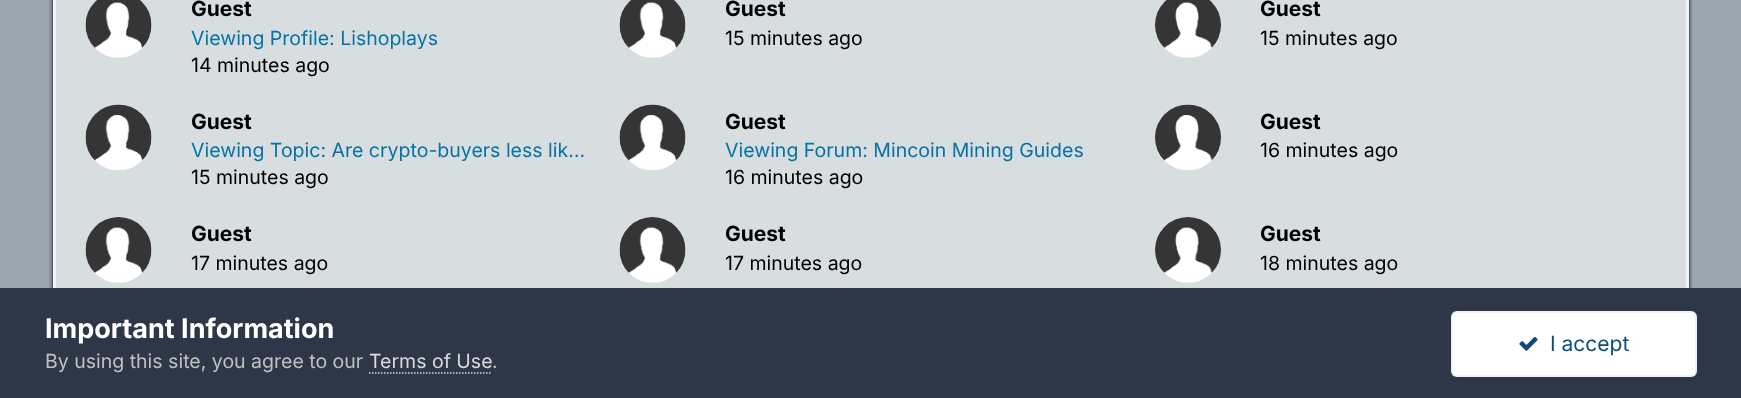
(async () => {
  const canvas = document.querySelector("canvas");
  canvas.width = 1741;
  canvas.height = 398;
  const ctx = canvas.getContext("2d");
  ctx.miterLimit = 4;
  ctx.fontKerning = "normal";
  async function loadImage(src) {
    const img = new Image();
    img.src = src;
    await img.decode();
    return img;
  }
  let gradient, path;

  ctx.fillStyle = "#ffffff";
  ctx.fillRect(0, 0, 1741, 398);
  gradient = ctx.createLinearGradient(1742, -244, 0, -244);
  gradient.addColorStop(0.06, "#9ba6ad");
  gradient.addColorStop(0.48, "#ebeeef");
  gradient.addColorStop(0.86, "#9ba6ad");
  ctx.fillStyle = gradient;
  ctx.fillRect(0, 0, 1741, 288);
  ctx.fillStyle = "#000000";
  ctx.filter = "blur(2px)";
  ctx.beginPath();
  ctx.roundRect(53, -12, 1636, 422, 6);
  ctx.fill();
  ctx.filter = "none";
  ctx.fillStyle = "#d8dde0";
  ctx.fillRect(56, 0, 1630, 288);
  ctx.strokeStyle = "#eff3f8";
  ctx.lineWidth = 3;
  ctx.strokeRect(54.5, -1.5, 1633, 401);
  ctx.drawImage(await loadImage("img/1.png"), 85, 0, 67, 58);
  ctx.drawImage(await loadImage("img/2.png"), 619, 0, 67, 58);
  ctx.drawImage(await loadImage("img/3.png"), 1155, 0, 66, 58);
  ctx.drawImage(await loadImage("img/4.png"), 85, 104, 67, 67);
  ctx.drawImage(await loadImage("img/5.png"), 619, 104, 67, 67);
  ctx.drawImage(await loadImage("img/6.png"), 1155, 104, 66, 67);
  ctx.drawImage(await loadImage("img/7.png"), 85, 217, 67, 66);
  ctx.drawImage(await loadImage("img/8.png"), 619, 217, 67, 66);
  ctx.drawImage(await loadImage("img/9.png"), 1155, 217, 66, 66);
  ctx.fillStyle = "#2d3748";
  ctx.fillRect(0, 288, 1741, 110);
  path = new Path2D("M369 373H492");
  ctx.strokeStyle = "#dadada";
  ctx.lineWidth = 1.5;
  ctx.setLineDash([1.5, 1.5]);
  ctx.stroke(path);
  ctx.fillStyle = "#ffffff";
  ctx.beginPath();
  ctx.roundRect(1451, 311, 246, 66, 6);
  ctx.fill();
  ctx.beginPath();
  ctx.roundRect(1452, 312, 244, 64, 5);
  ctx.strokeStyle = "rgba(14, 76, 121, 0.07)";
  ctx.lineWidth = 2;
  ctx.setLineDash([]);
  ctx.stroke();
  ctx.drawImage(await loadImage("img/10.png"), 1519, 336, 19, 15);
  ctx.font = "bold 21px Inter";
  ctx.fillStyle = "#000000";
  ctx.fillText("Guest", 191, 16);
  ctx.font = "19.5px Inter";
  ctx.fillStyle = "#0573a4";
  ctx.fillText("Viewing Profile: Lishoplays", 191, 45);
  ctx.fillStyle = "#000000";
  ctx.fillText("14 minutes ago", 191, 72);
  ctx.font = "bold 21px Inter";
  ctx.fillText("Guest", 725, 16);
  ctx.font = "19.5px Inter";
  ctx.fillText("15 minutes ago", 725, 45);
  ctx.font = "bold 21px Inter";
  ctx.fillText("Guest", 1260, 16);
  ctx.font = "19.5px Inter";
  ctx.fillText("15 minutes ago", 1260, 45);
  ctx.font = "bold 21px Inter";
  ctx.fillText("Guest", 191, 129);
  ctx.font = "19.5px Inter";
  ctx.fillStyle = "#0573a4";
  ctx.fillText("Viewing Topic: Are crypto-buyers less lik…", 191, 157);
  ctx.fillStyle = "#000000";
  ctx.fillText("15 minutes ago", 191, 184);
  ctx.font = "bold 21px Inter";
  ctx.fillText("Guest", 725, 129);
  ctx.font = "19.5px Inter";
  ctx.fillStyle = "#0573a4";
  ctx.fillText("Viewing Forum: Mincoin Mining Guides", 725, 157);
  ctx.fillStyle = "#000000";
  ctx.fillText("16 minutes ago", 725, 184);
  ctx.font = "bold 21px Inter";
  ctx.fillText("Guest", 1260, 129);
  ctx.font = "19.5px Inter";
  ctx.fillText("16 minutes ago", 1260, 157);
  ctx.font = "bold 21px Inter";
  ctx.fillText("Guest", 191, 241);
  ctx.font = "19.5px Inter";
  ctx.fillText("17 minutes ago", 191, 270);
  ctx.font = "bold 21px Inter";
  ctx.fillText("Guest", 725, 241);
  ctx.font = "19.5px Inter";
  ctx.fillText("17 minutes ago", 725, 270);
  ctx.font = "bold 21px Inter";
  ctx.fillText("Guest", 1260, 241);
  ctx.font = "19.5px Inter";
  ctx.fillText("18 minutes ago", 1260, 270);
  ctx.font = "bold 27px Inter";
  ctx.fillStyle = "#ffffff";
  ctx.fillText("Important Information", 45, 338);
  ctx.font = "19.5px Inter";
  ctx.fillStyle = "#c0c0c0";
  ctx.fillText("By using this site, you agree to our", 45, 368);
  ctx.fillStyle = "#dadada";
  ctx.fillText("Terms of Use", 369, 368);
  ctx.fillStyle = "#c0c0c0";
  ctx.fillText(".", 492, 368);
  ctx.font = "21px Inter";
  ctx.fillStyle = "#0e4c79";
  ctx.fillText("I accept", 1550, 351);
})();
